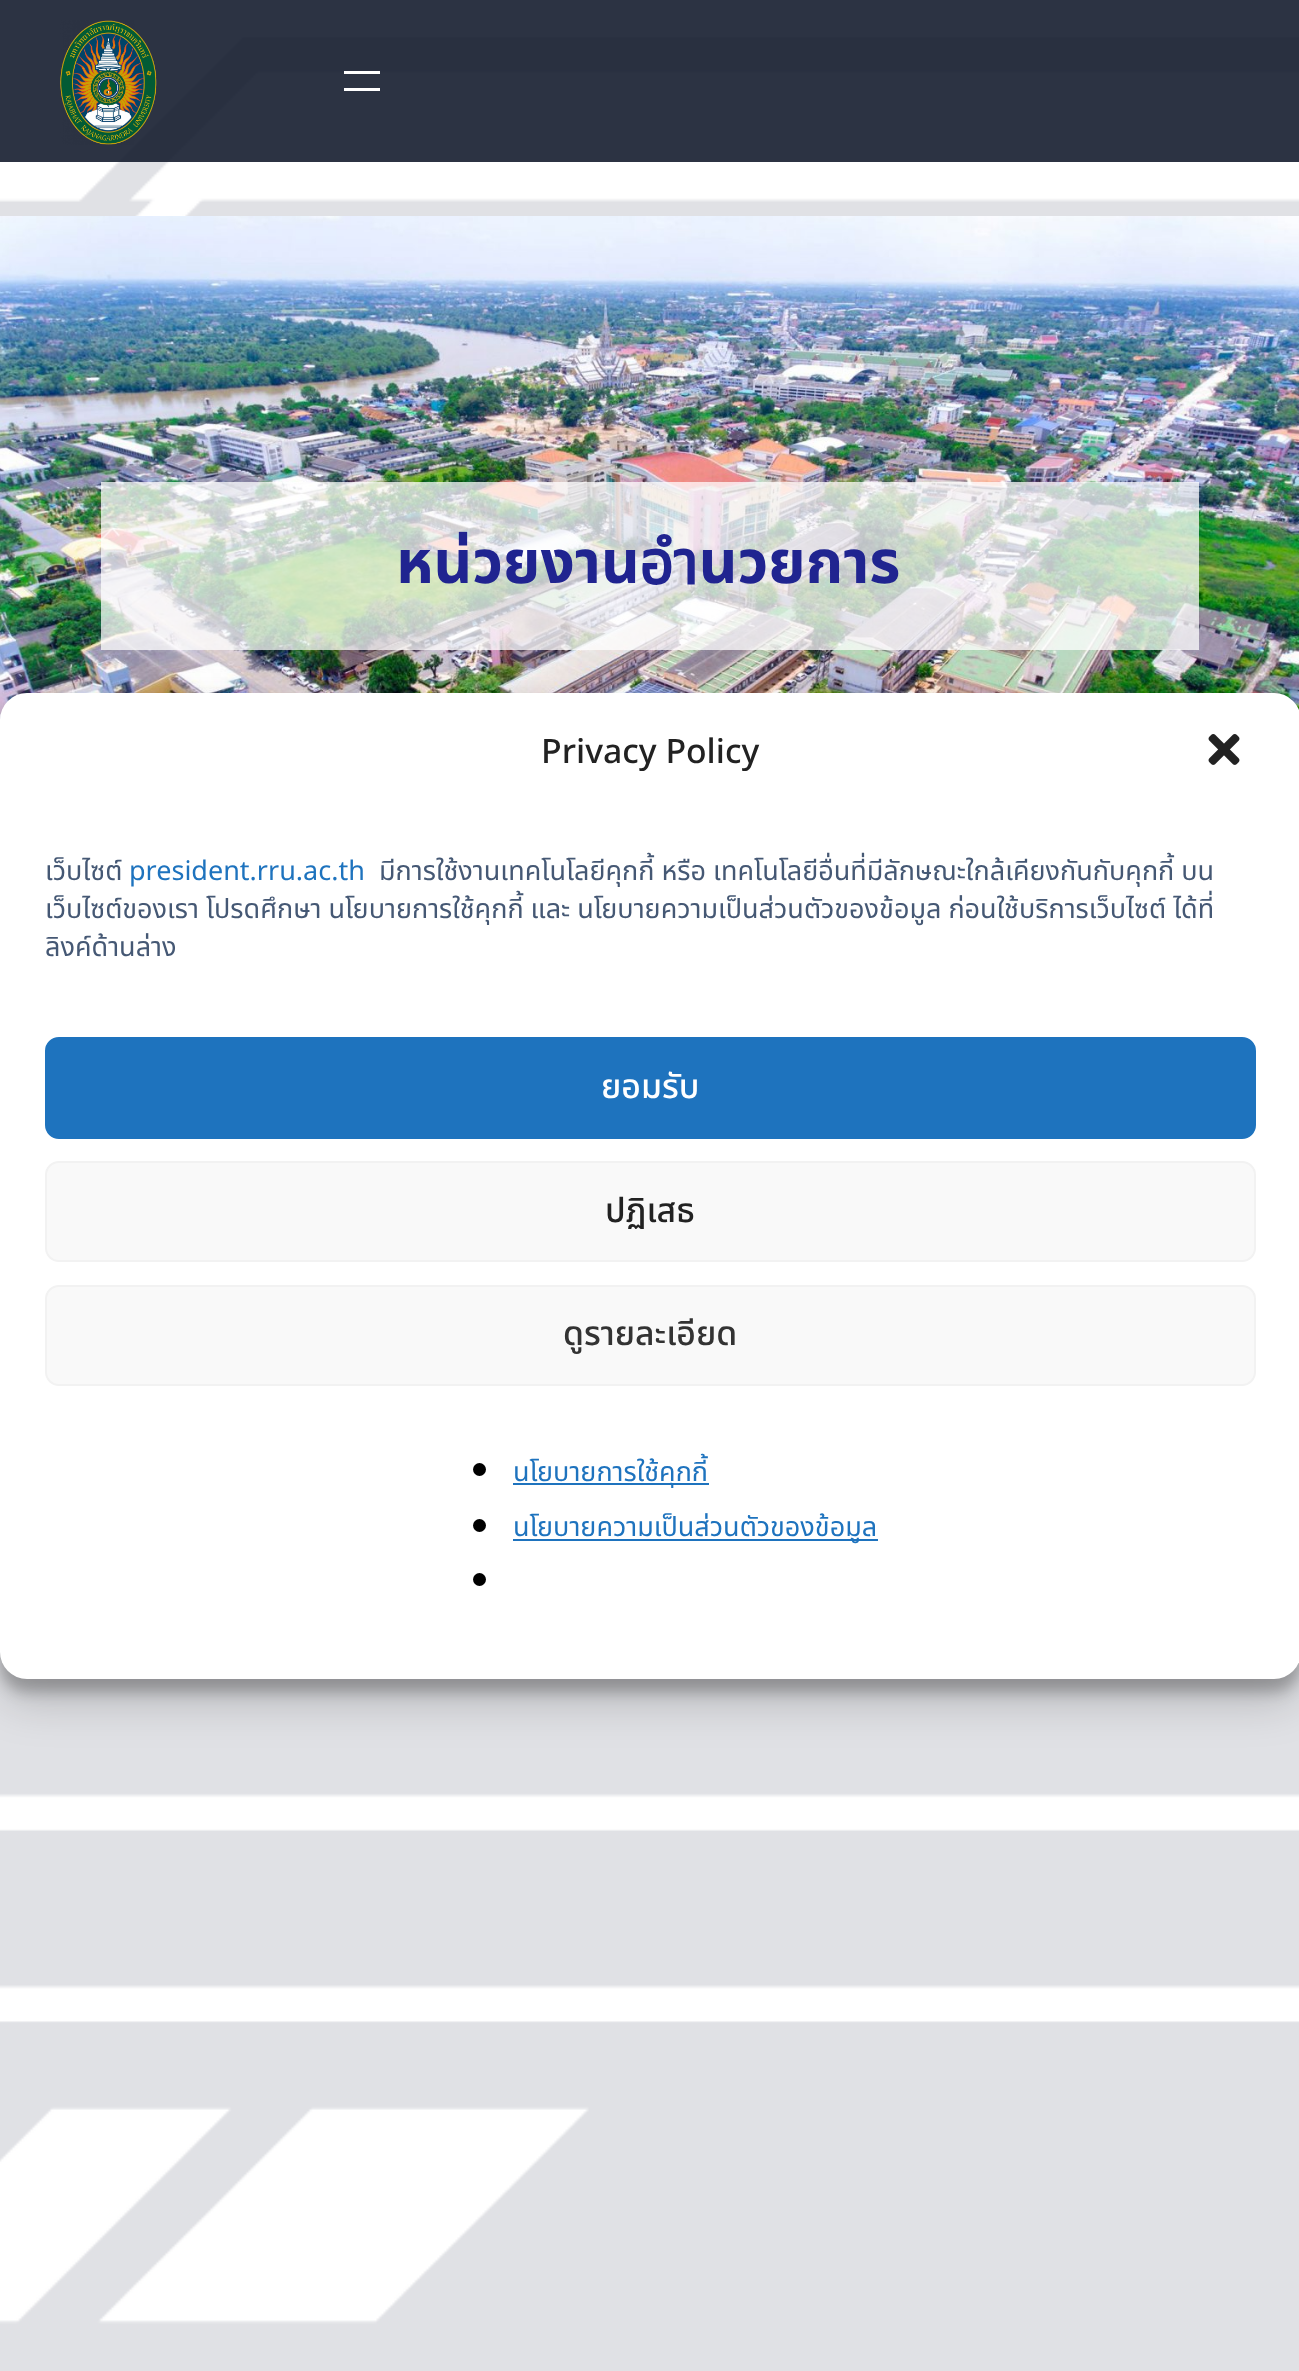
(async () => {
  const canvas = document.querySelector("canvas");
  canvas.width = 1299;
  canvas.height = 2371;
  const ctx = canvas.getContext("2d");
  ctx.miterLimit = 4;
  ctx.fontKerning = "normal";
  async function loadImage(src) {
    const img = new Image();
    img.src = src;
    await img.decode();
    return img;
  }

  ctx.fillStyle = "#ffffff";
  ctx.fillRect(0, 0, 1299, 2371);
  ctx.drawImage(await loadImage("img/1.png"), 0, 0, 1299, 2371);
  ctx.fillStyle = "rgba(15, 23, 41, 0.88)";
  ctx.fillRect(0, 0, 1299, 162);
  ctx.drawImage(await loadImage("img/2.png"), 60, 20, 97, 125);
  ctx.fillStyle = "#ffffff";
  ctx.fillRect(344, 71, 36, 3);
  ctx.fillRect(344, 88, 36, 3);
  ctx.drawImage(await loadImage("img/3.png"), 0, 216, 1299, 504);
  ctx.fillStyle = "rgba(255, 255, 255, 0.74)";
  ctx.fillRect(101, 482, 1098, 168);
  ctx.fillStyle = "rgba(0, 0, 0, 0.23)";
  ctx.filter = "blur(7px)";
  ctx.beginPath();
  ctx.roundRect(0, 707, 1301, 985, 27);
  ctx.fill();
  ctx.filter = "none";
  ctx.fillStyle = "rgba(0, 0, 0, 0.19)";
  ctx.filter = "blur(22.5px)";
  ctx.beginPath();
  ctx.roundRect(0, 716, 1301, 985, 27);
  ctx.fill();
  ctx.filter = "none";
  ctx.fillStyle = "#ffffff";
  ctx.beginPath();
  ctx.roundRect(0, 693, 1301, 986, 27);
  ctx.fill();
  ctx.drawImage(await loadImage("img/4.png"), 1208, 734, 32, 31);
  ctx.fillStyle = "#1e73be";
  ctx.beginPath();
  ctx.roundRect(46, 1038, 1209, 100, 13);
  ctx.fill();
  ctx.strokeStyle = "#1e73be";
  ctx.lineWidth = 2;
  ctx.stroke();
  ctx.fillStyle = "#f9f9f9";
  ctx.beginPath();
  ctx.roundRect(46, 1162, 1209, 99, 13);
  ctx.fill();
  ctx.strokeStyle = "#f2f2f2";
  ctx.stroke();
  ctx.beginPath();
  ctx.roundRect(46, 1286, 1209, 99, 13);
  ctx.fill();
  ctx.stroke();
  ctx.fillStyle = "#000000";
  ctx.beginPath();
  ctx.arc(479.5, 1469.5, 6.5, 0, Math.PI * 2);
  ctx.fill();
  ctx.fillStyle = "#1e73be";
  ctx.fillRect(513, 1483, 196, 2);
  ctx.fillStyle = "#000000";
  ctx.beginPath();
  ctx.arc(479.5, 1525.5, 6.5, 0, Math.PI * 2);
  ctx.fill();
  ctx.fillStyle = "#1e73be";
  ctx.fillRect(513, 1539, 365, 2);
  ctx.fillStyle = "#000000";
  ctx.beginPath();
  ctx.arc(479.5, 1579.5, 6.5, 0, Math.PI * 2);
  ctx.fill();
  ctx.font = "bold 60.1px Noto Sans Thai";
  ctx.fillStyle = "#202490";
  ctx.fillText("หน่วยงานอำนวยการ", 396, 583);
  ctx.font = "500 33.75px Noto Sans Thai";
  ctx.fillStyle = "#222222";
  ctx.fillText("Privacy Policy", 541, 763);
  ctx.save();
  ctx.beginPath();
  ctx.rect(45, 826, 1211, 166);
  ctx.clip();
  ctx.font = "27px Noto Sans Thai";
  ctx.fillStyle = "#455874";
  ctx.fillText("เว็บไซต์", 45, 880);
  ctx.restore();
  ctx.font = "27px Noto Sans Thai";
  ctx.fillStyle = "#1e73be";
  ctx.fillText("president.rru.ac.th", 129, 880);
  ctx.fillStyle = "#455874";
  ctx.fillText("มีการใช้งานเทคโนโลยีคุกกี้ หรือ เทคโนโลยีอื่นที่มีลักษณะใกล้เคียงกันกับคุกกี้ บน", 379, 880);
  ctx.save();
  ctx.beginPath();
  ctx.rect(45, 826, 1211, 166);
  ctx.clip();
  ctx.fillText("เว็บไซต์ของเรา โปรดศึกษา นโยบายการใช้คุกกี้ และ นโยบายความเป็นส่วนตัวของข้อมูล ก่อนใช้บริการเว็บไซต์ ได้ที่", 45, 918);
  ctx.fillText("ลิงค์ด้านล่าง", 45, 956);
  ctx.restore();
  ctx.font = "500 33.75px Noto Sans Thai";
  ctx.fillStyle = "#ffffff";
  ctx.fillText("ยอมรับ", 601, 1098);
  ctx.fillStyle = "#222222";
  ctx.fillText("ปฏิเสธ", 605, 1222);
  ctx.fillStyle = "#333333";
  ctx.fillText("ดูรายละเอียด", 563, 1345);
  ctx.font = "27px Noto Sans Thai";
  ctx.fillStyle = "#1e73be";
  ctx.fillText("นโยบายการใช้คุกกี้", 513, 1481);
  ctx.fillText("นโยบายความเป็นส่วนตัวของข้อมูล", 513, 1536);
})();
